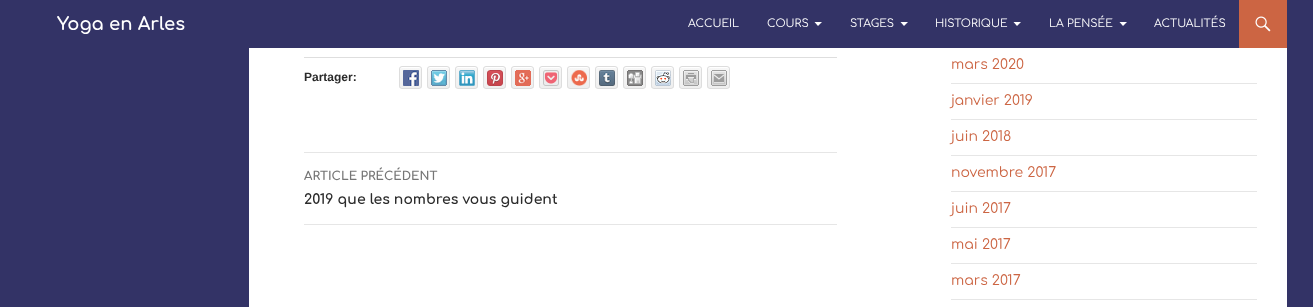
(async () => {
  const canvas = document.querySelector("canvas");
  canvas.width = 1313;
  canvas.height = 307;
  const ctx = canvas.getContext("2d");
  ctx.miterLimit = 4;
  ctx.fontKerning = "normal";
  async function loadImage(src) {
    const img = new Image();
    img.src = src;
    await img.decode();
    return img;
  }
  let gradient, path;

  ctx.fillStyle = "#333366";
  ctx.fillRect(0, 0, 1313, 307);
  ctx.fillStyle = "#ffffff";
  ctx.fillRect(249, 48, 1038, 259);
  path = new Path2D("M814.5 22L818 26L822 22Z");
  ctx.fill(path);
  path = new Path2D("M900.5 22L904 26L908 22Z");
  ctx.fill(path);
  path = new Path2D("M1013.5 22L1017 26L1021 22Z");
  ctx.fill(path);
  path = new Path2D("M1119.5 22L1123 26L1127 22Z");
  ctx.fill(path);
  ctx.fillStyle = "#cc6543";
  ctx.fillRect(1239, 0, 48, 48);
  ctx.drawImage(await loadImage("img/1.png"), 1255, 16, 16, 16);
  ctx.fillStyle = "#dedede";
  ctx.fillRect(304, 57, 533, 1);
  ctx.save();
  ctx.beginPath();
  ctx.roundRect(399, 66, 23, 23, 3);
  ctx.clip();
  gradient = ctx.createLinearGradient(411, 67, 411, 88);
  gradient.addColorStop(0, "#f7f7f7");
  gradient.addColorStop(1, "#efefef");
  ctx.fillStyle = gradient;
  ctx.fillRect(399, 67, 23, 21);
  ctx.restore();
  ctx.fillStyle = "#ffffff";
  path = new Path2D("M402 68H419C420 68 421 69 421 70C421 66.5 419.5 67 416 67H405C401.5 67 400 66.5 400 70C400 69 401 68 402 68Z");
  ctx.fill(path);
  ctx.beginPath();
  ctx.roundRect(399.5, 66.5, 22, 22, 2.5);
  ctx.strokeStyle = "#dddddd";
  ctx.stroke();
  ctx.drawImage(await loadImage("img/2.png"), 403, 70, 16, 16);
  ctx.save();
  ctx.beginPath();
  ctx.roundRect(427, 66, 23, 23, 3);
  ctx.clip();
  gradient = ctx.createLinearGradient(439, 67, 439, 88);
  gradient.addColorStop(0, "#f7f7f7");
  gradient.addColorStop(1, "#efefef");
  ctx.fillStyle = gradient;
  ctx.fillRect(427, 67, 23, 21);
  ctx.restore();
  path = new Path2D("M430 68H447C448 68 449 69 449 70C449 66.5 447.5 67 444 67H433C429.5 67 428 66.5 428 70C428 69 429 68 430 68Z");
  ctx.fill(path);
  ctx.beginPath();
  ctx.roundRect(427.5, 66.5, 22, 22, 2.5);
  ctx.stroke();
  ctx.drawImage(await loadImage("img/3.png"), 431, 70, 16, 16);
  ctx.save();
  ctx.beginPath();
  ctx.roundRect(455, 66, 23, 23, 3);
  ctx.clip();
  gradient = ctx.createLinearGradient(467, 67, 467, 88);
  gradient.addColorStop(0, "#f7f7f7");
  gradient.addColorStop(1, "#efefef");
  ctx.fillStyle = gradient;
  ctx.fillRect(455, 67, 23, 21);
  ctx.restore();
  path = new Path2D("M458 68H475C476 68 477 69 477 70C477 66.5 475.5 67 472 67H461C457.5 67 456 66.5 456 70C456 69 457 68 458 68Z");
  ctx.fill(path);
  ctx.beginPath();
  ctx.roundRect(455.5, 66.5, 22, 22, 2.5);
  ctx.stroke();
  ctx.drawImage(await loadImage("img/4.png"), 459, 70, 16, 16);
  ctx.save();
  ctx.beginPath();
  ctx.roundRect(483, 66, 23, 23, 3);
  ctx.clip();
  gradient = ctx.createLinearGradient(495, 67, 495, 88);
  gradient.addColorStop(0, "#f7f7f7");
  gradient.addColorStop(1, "#efefef");
  ctx.fillStyle = gradient;
  ctx.fillRect(483, 67, 23, 21);
  ctx.restore();
  path = new Path2D("M486 68H503C504 68 505 69 505 70C505 66.5 503.5 67 500 67H489C485.5 67 484 66.5 484 70C484 69 485 68 486 68Z");
  ctx.fill(path);
  ctx.beginPath();
  ctx.roundRect(483.5, 66.5, 22, 22, 2.5);
  ctx.stroke();
  ctx.drawImage(await loadImage("img/5.png"), 487, 70, 16, 16);
  ctx.save();
  ctx.beginPath();
  ctx.roundRect(511, 66, 23, 23, 3);
  ctx.clip();
  gradient = ctx.createLinearGradient(523, 67, 523, 88);
  gradient.addColorStop(0, "#f7f7f7");
  gradient.addColorStop(1, "#efefef");
  ctx.fillStyle = gradient;
  ctx.fillRect(511, 67, 23, 21);
  ctx.restore();
  path = new Path2D("M514 68H531C532 68 533 69 533 70C533 66.5 531.5 67 528 67H517C513.5 67 512 66.5 512 70C512 69 513 68 514 68Z");
  ctx.fill(path);
  ctx.beginPath();
  ctx.roundRect(511.5, 66.5, 22, 22, 2.5);
  ctx.stroke();
  ctx.drawImage(await loadImage("img/6.png"), 515, 70, 16, 16);
  ctx.save();
  ctx.beginPath();
  ctx.roundRect(539, 66, 23, 23, 3);
  ctx.clip();
  gradient = ctx.createLinearGradient(551, 67, 551, 88);
  gradient.addColorStop(0, "#f7f7f7");
  gradient.addColorStop(1, "#efefef");
  ctx.fillStyle = gradient;
  ctx.fillRect(539, 67, 23, 21);
  ctx.restore();
  path = new Path2D("M542 68H559C560 68 561 69 561 70C561 66.5 559.5 67 556 67H545C541.5 67 540 66.5 540 70C540 69 541 68 542 68Z");
  ctx.fill(path);
  ctx.beginPath();
  ctx.roundRect(539.5, 66.5, 22, 22, 2.5);
  ctx.stroke();
  ctx.drawImage(await loadImage("img/7.png"), 543, 70, 16, 16);
  ctx.save();
  ctx.beginPath();
  ctx.roundRect(567, 66, 23, 23, 3);
  ctx.clip();
  gradient = ctx.createLinearGradient(579, 67, 579, 88);
  gradient.addColorStop(0, "#f7f7f7");
  gradient.addColorStop(1, "#efefef");
  ctx.fillStyle = gradient;
  ctx.fillRect(567, 67, 23, 21);
  ctx.restore();
  path = new Path2D("M570 68H587C588 68 589 69 589 70C589 66.5 587.5 67 584 67H573C569.5 67 568 66.5 568 70C568 69 569 68 570 68Z");
  ctx.fill(path);
  ctx.beginPath();
  ctx.roundRect(567.5, 66.5, 22, 22, 2.5);
  ctx.stroke();
  ctx.drawImage(await loadImage("img/8.png"), 571, 70, 16, 16);
  ctx.save();
  ctx.beginPath();
  ctx.roundRect(595, 66, 23, 23, 3);
  ctx.clip();
  gradient = ctx.createLinearGradient(607, 67, 607, 88);
  gradient.addColorStop(0, "#f7f7f7");
  gradient.addColorStop(1, "#efefef");
  ctx.fillStyle = gradient;
  ctx.fillRect(595, 67, 23, 21);
  ctx.restore();
  path = new Path2D("M598 68H615C616 68 617 69 617 70C617 66.5 615.5 67 612 67H601C597.5 67 596 66.5 596 70C596 69 597 68 598 68Z");
  ctx.fill(path);
  ctx.beginPath();
  ctx.roundRect(595.5, 66.5, 22, 22, 2.5);
  ctx.stroke();
  ctx.drawImage(await loadImage("img/9.png"), 599, 70, 16, 16);
  ctx.save();
  ctx.beginPath();
  ctx.roundRect(623, 66, 23, 23, 3);
  ctx.clip();
  gradient = ctx.createLinearGradient(635, 67, 635, 88);
  gradient.addColorStop(0, "#f7f7f7");
  gradient.addColorStop(1, "#efefef");
  ctx.fillStyle = gradient;
  ctx.fillRect(623, 67, 23, 21);
  ctx.restore();
  path = new Path2D("M626 68H643C644 68 645 69 645 70C645 66.5 643.5 67 640 67H629C625.5 67 624 66.5 624 70C624 69 625 68 626 68Z");
  ctx.fill(path);
  ctx.beginPath();
  ctx.roundRect(623.5, 66.5, 22, 22, 2.5);
  ctx.stroke();
  ctx.drawImage(await loadImage("img/10.png"), 627, 70, 16, 16);
  ctx.save();
  ctx.beginPath();
  ctx.roundRect(651, 66, 23, 23, 3);
  ctx.clip();
  gradient = ctx.createLinearGradient(663, 67, 663, 88);
  gradient.addColorStop(0, "#f7f7f7");
  gradient.addColorStop(1, "#efefef");
  ctx.fillStyle = gradient;
  ctx.fillRect(651, 67, 23, 21);
  ctx.restore();
  path = new Path2D("M654 68H671C672 68 673 69 673 70C673 66.5 671.5 67 668 67H657C653.5 67 652 66.5 652 70C652 69 653 68 654 68Z");
  ctx.fill(path);
  ctx.beginPath();
  ctx.roundRect(651.5, 66.5, 22, 22, 2.5);
  ctx.stroke();
  ctx.drawImage(await loadImage("img/11.png"), 655, 70, 16, 16);
  ctx.save();
  ctx.beginPath();
  ctx.roundRect(679, 66, 23, 23, 3);
  ctx.clip();
  gradient = ctx.createLinearGradient(691, 67, 691, 88);
  gradient.addColorStop(0, "#f7f7f7");
  gradient.addColorStop(1, "#efefef");
  ctx.fillStyle = gradient;
  ctx.fillRect(679, 67, 23, 21);
  ctx.restore();
  path = new Path2D("M682 68H699C700 68 701 69 701 70C701 66.5 699.5 67 696 67H685C681.5 67 680 66.5 680 70C680 69 681 68 682 68Z");
  ctx.fill(path);
  ctx.beginPath();
  ctx.roundRect(679.5, 66.5, 22, 22, 2.5);
  ctx.stroke();
  ctx.drawImage(await loadImage("img/12.png"), 683, 70, 16, 16);
  ctx.save();
  ctx.beginPath();
  ctx.roundRect(707, 66, 23, 23, 3);
  ctx.clip();
  gradient = ctx.createLinearGradient(719, 67, 719, 88);
  gradient.addColorStop(0, "#f7f7f7");
  gradient.addColorStop(1, "#efefef");
  ctx.fillStyle = gradient;
  ctx.fillRect(707, 67, 23, 21);
  ctx.restore();
  path = new Path2D("M710 68H727C728 68 729 69 729 70C729 66.5 727.5 67 724 67H713C709.5 67 708 66.5 708 70C708 69 709 68 710 68Z");
  ctx.fill(path);
  ctx.beginPath();
  ctx.roundRect(707.5, 66.5, 22, 22, 2.5);
  ctx.stroke();
  ctx.drawImage(await loadImage("img/13.png"), 711, 70, 16, 16);
  for (const [x, y, w, h, color] of [
    [304, 152, 533, 1, "#e6e6e6"],
    [304, 224, 533, 1, "#e6e6e6"],
    [951, 83, 306, 1, "#e6e6e6"],
    [951, 119, 306, 1, "#e6e6e6"],
    [951, 155, 306, 1, "#e6e6e6"],
    [951, 191, 306, 1, "#e6e6e6"],
    [951, 227, 306, 1, "#e6e6e6"],
    [951, 263, 306, 1, "#e6e6e6"],
    [951, 299, 306, 1, "#e6e6e6"],
  ]) {
    ctx.fillStyle = color;
    ctx.fillRect(x, y, w, h);
  }
  ctx.font = "bold 18px Comfortaa";
  ctx.fillStyle = "#ffffff";
  ctx.fillText("Yoga en Arles", 57, 30);
  ctx.font = "11px Comfortaa";
  for (const [text, x, y] of [
    ["ACCUEIL", 688, 27],
    ["COURS", 767, 27],
    ["STAGES", 850, 27],
    ["HISTORIQUE", 935, 27],
    ["LA PENSÉE", 1049, 27],
    ["ACTUALITÉS", 1154, 27],
  ]) {
    ctx.fillText(text, x, y);
  }
  ctx.font = "bold 12px Liberation Sans";
  ctx.fillStyle = "#2b2b2b";
  ctx.fillText("Partager:", 304, 81);
  ctx.font = "bold 12px Comfortaa";
  ctx.fillStyle = "#767676";
  ctx.fillText("ARTICLE PRÉCÉDENT", 304, 180);
  ctx.font = "bold 14px Comfortaa";
  ctx.fillStyle = "#2b2b2b";
  ctx.fillText("2019 que les nombres vous guident", 304, 204);
  ctx.font = "14px Comfortaa";
  ctx.fillStyle = "#cc6543";
  for (const [text, x, y] of [
    ["mars 2020", 951, 69],
    ["janvier 2019", 951, 105],
    ["juin 2018", 951, 141],
    ["novembre 2017", 951, 177],
    ["juin 2017", 951, 213],
    ["mai 2017", 951, 249],
    ["mars 2017", 951, 285],
  ]) {
    ctx.fillText(text, x, y);
  }
})();
